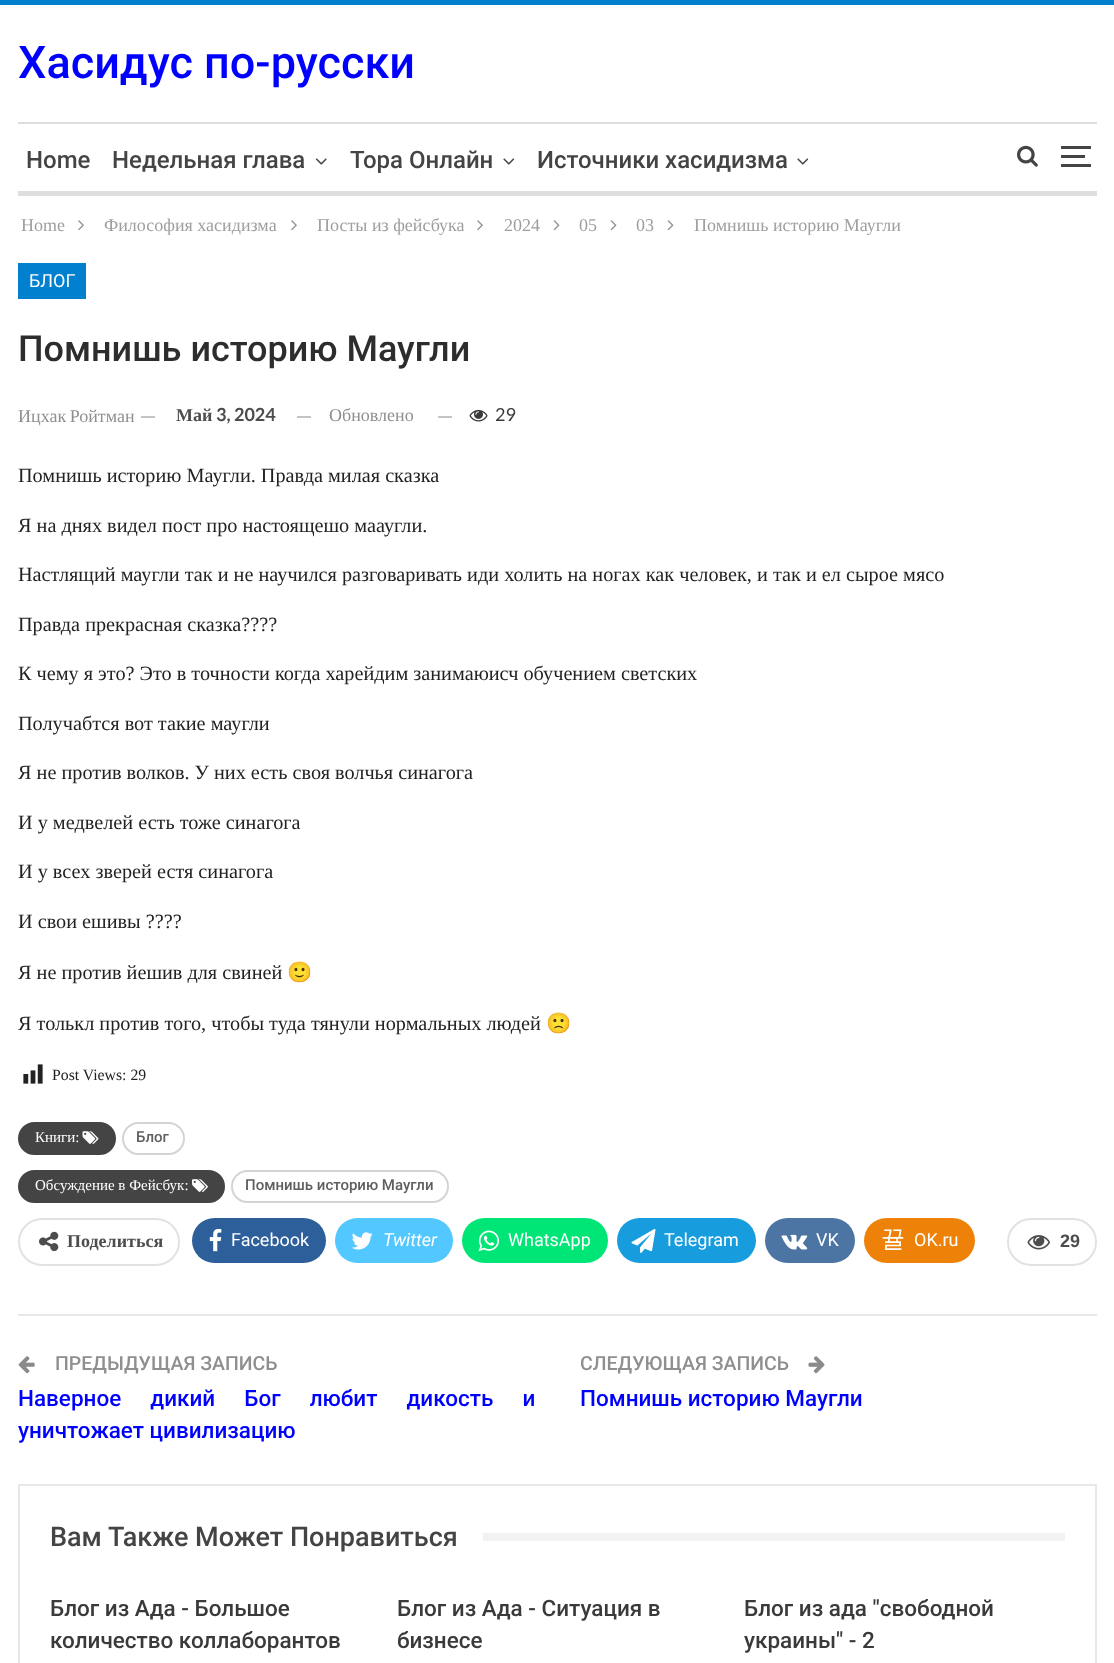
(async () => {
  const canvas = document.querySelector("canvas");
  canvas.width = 1114;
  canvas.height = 1663;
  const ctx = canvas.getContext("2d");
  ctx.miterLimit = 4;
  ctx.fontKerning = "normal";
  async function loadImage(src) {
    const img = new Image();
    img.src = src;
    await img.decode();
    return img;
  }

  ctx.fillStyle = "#0080ce";
  ctx.fillRect(0, 0, 1114, 1663);
  for (const [x, y, w, h, color] of [
    [0, 5, 1114, 1658, "#ffffff"],
    [18, 122, 1079, 2, "#dedede"],
    [18, 191, 1079, 5, "#dedede"],
  ]) {
    ctx.fillStyle = color;
    ctx.fillRect(x, y, w, h);
  }
  ctx.drawImage(await loadImage("img/1.png"), 315, 158, 12, 7);
  ctx.drawImage(await loadImage("img/2.png"), 503, 158, 12, 7);
  ctx.drawImage(await loadImage("img/2.png"), 797, 158, 12, 7);
  ctx.drawImage(await loadImage("img/3.png"), 1017, 145, 21, 22);
  for (const [x, y, w, h, color] of [
    [1061, 155, 24, 3, "#444444"],
    [1061, 146, 30, 3, "#444444"],
    [1061, 164, 30, 3, "#444444"],
  ]) {
    ctx.fillStyle = color;
    ctx.fillRect(x, y, w, h);
  }
  ctx.drawImage(await loadImage("img/4.png"), 78, 220, 6, 11);
  ctx.drawImage(await loadImage("img/4.png"), 291, 220, 6, 11);
  ctx.drawImage(await loadImage("img/4.png"), 477, 220, 6, 11);
  ctx.drawImage(await loadImage("img/5.png"), 553, 220, 7, 11);
  ctx.drawImage(await loadImage("img/5.png"), 610, 220, 7, 11);
  ctx.drawImage(await loadImage("img/5.png"), 667, 220, 7, 11);
  for (const [x, y, w, h, color] of [
    [18, 263, 68, 36, "#0080ce"],
    [141, 416, 14, 2, "#c4c4c4"],
    [297, 416, 14, 2, "#c4c4c4"],
    [438, 416, 14, 2, "#c4c4c4"],
  ]) {
    ctx.fillStyle = color;
    ctx.fillRect(x, y, w, h);
  }
  ctx.drawImage(await loadImage("img/6.png"), 469, 409, 19, 13);
  ctx.drawImage(await loadImage("img/7.png"), 23, 1064, 20, 20);
  ctx.fillStyle = "#444444";
  ctx.beginPath();
  ctx.roundRect(19, 1123, 96, 31, 15.5);
  ctx.fill();
  ctx.strokeStyle = "#444444";
  ctx.lineWidth = 2;
  ctx.stroke();
  ctx.drawImage(await loadImage("img/8.png"), 82, 1131, 17, 13);
  ctx.beginPath();
  ctx.roundRect(123, 1123, 61, 31, 15.5);
  ctx.strokeStyle = "#d4d4d4";
  ctx.stroke();
  ctx.beginPath();
  ctx.roundRect(19, 1171, 205, 31, 15.5);
  ctx.fill();
  ctx.strokeStyle = "#444444";
  ctx.stroke();
  ctx.drawImage(await loadImage("img/9.png"), 192, 1179, 16, 13);
  ctx.beginPath();
  ctx.roundRect(232, 1171, 216, 31, 15.5);
  ctx.strokeStyle = "#d4d4d4";
  ctx.stroke();
  ctx.beginPath();
  ctx.roundRect(19, 1219, 160, 46, 23);
  ctx.strokeStyle = "#e2e2e2";
  ctx.stroke();
  ctx.drawImage(await loadImage("img/10.png"), 39, 1231, 20, 21);
  ctx.fillStyle = "#2d5f9a";
  ctx.beginPath();
  ctx.roundRect(192, 1218, 134, 45, 22.5);
  ctx.fill();
  ctx.drawImage(await loadImage("img/11.png"), 209, 1228, 13, 24);
  ctx.fillStyle = "#53c7ff";
  ctx.beginPath();
  ctx.roundRect(335, 1218, 118, 45, 22.5);
  ctx.fill();
  ctx.drawImage(await loadImage("img/12.png"), 351, 1232, 22, 18);
  ctx.fillStyle = "#00e676";
  ctx.beginPath();
  ctx.roundRect(462, 1218, 146, 45, 22.5);
  ctx.fill();
  ctx.drawImage(await loadImage("img/13.png"), 478, 1230, 22, 22);
  ctx.fillStyle = "#179cde";
  ctx.beginPath();
  ctx.roundRect(617, 1218, 139, 45, 22.5);
  ctx.fill();
  ctx.drawImage(await loadImage("img/14.png"), 631, 1229, 25, 24);
  ctx.fillStyle = "#4c75a3";
  ctx.beginPath();
  ctx.roundRect(765, 1218, 90, 45, 22.5);
  ctx.fill();
  ctx.drawImage(await loadImage("img/15.png"), 781, 1234, 27, 16);
  ctx.fillStyle = "#ee8208";
  ctx.beginPath();
  ctx.roundRect(864, 1218, 111, 45, 22.5);
  ctx.fill();
  ctx.beginPath();
  ctx.roundRect(1008, 1219, 88, 46, 23);
  ctx.stroke();
  ctx.drawImage(await loadImage("img/16.png"), 1027, 1235, 23, 15);
  ctx.fillStyle = "#e8e8e8";
  ctx.fillRect(18, 1314, 1079, 2);
  ctx.drawImage(await loadImage("img/17.png"), 18, 1356, 17, 18);
  ctx.drawImage(await loadImage("img/18.png"), 808, 1356, 17, 18);
  ctx.strokeStyle = "#e8e8e8";
  ctx.strokeRect(19, 1485, 1077, 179);
  ctx.fillStyle = "#f2f2f2";
  ctx.fillRect(483, 1533, 582, 8);
  ctx.font = "500 45px Roboto";
  ctx.fillStyle = "#0000ff";
  ctx.fillText("Хасидус по-русски", 18, 78);
  ctx.font = "500 24px Roboto";
  ctx.fillStyle = "#444444";
  for (const [text, x, y] of [
    ["Home", 26, 168],
    ["Недельная глава", 112, 168],
    ["Тора Онлайн", 350, 168],
    ["Источники хасидизма", 537, 168],
  ]) {
    ctx.fillText(text, x, y);
  }
  ctx.font = "18px Liberation Serif";
  ctx.fillStyle = "#9e9e9e";
  for (const [text, x, y] of [
    ["Home", 21, 231],
    ["Философия хасидизма", 104, 231],
    ["Посты из фейсбука", 317, 231],
    ["2024", 504, 231],
    ["05", 579, 231],
    ["03", 636, 231],
    ["Помнишь историю Маугли", 694, 231],
  ]) {
    ctx.fillText(text, x, y);
  }
  ctx.font = "18px Roboto";
  ctx.fillStyle = "#ffffff";
  ctx.fillText("БЛОГ", 29, 287);
  ctx.font = "500 36px Roboto";
  ctx.fillStyle = "#2d2d2d";
  ctx.fillText("Помнишь историю Маугли", 18, 361);
  ctx.wordSpacing = "-1px";
  ctx.font = "18px Liberation Serif";
  ctx.fillStyle = "#8f8f8f";
  ctx.fillText("Ицхак Ройтман", 18, 422);
  ctx.wordSpacing = "0px";
  ctx.font = "bold 18px Liberation Serif";
  ctx.fillStyle = "#4d4d4d";
  ctx.fillText("Май", 176, 421);
  ctx.font = "bold 18px Lato";
  ctx.fillText("3, 2024", 216, 421);
  ctx.font = "18px Liberation Serif";
  ctx.fillStyle = "#8f8f8f";
  ctx.fillText("Обновлено", 329, 421);
  ctx.font = "18px Lato";
  ctx.fillStyle = "#3a3a3a";
  ctx.fillText("29", 495, 421);
  ctx.font = "20.25px Liberation Serif";
  ctx.fillStyle = "#222222";
  for (const [text, x, y] of [
    ["Помнишь историю Маугли. Правда милая сказка", 18, 482],
    ["Я на днях видел пост про настоящешо мааугли.", 18, 532],
    ["Настлящий маугли так и не научился разговаривать иди холить на ногах как человек, и так и ел сырое мясо", 18, 581],
    ["Правда прекрасная сказка????", 18, 631],
    ["К чему я это? Это в точности когда харейдим занимаюисч обучением светских", 18, 680],
    ["Получабтся вот такие маугли", 18, 730],
    ["Я не против волков. У них есть своя волчья синагога", 18, 779],
    ["И у медвелей есть тоже синагога", 18, 829],
    ["И у всех зверей естя синагога", 18, 878],
    ["И свои ешивы ????", 18, 928],
    ["Я не против йешив для свиней", 18, 979],
  ]) {
    ctx.fillText(text, x, y);
  }
  ctx.font = "20.25px Noto Color Emoji";
  ctx.fillText("🙂", 287, 979);
  ctx.font = "20.25px Liberation Serif";
  ctx.fillText("Я толькл против того, чтобы туда тянули нормальных людей", 18, 1030);
  ctx.font = "20.25px Noto Color Emoji";
  ctx.fillText("🙁", 546, 1030);
  ctx.font = "15.75px Liberation Serif";
  ctx.fillText("Post Views: 29", 52, 1080);
  ctx.font = "15px Liberation Serif";
  ctx.fillStyle = "#ffffff";
  ctx.fillText("Книги:", 35, 1142);
  ctx.font = "500 15px Roboto";
  ctx.fillStyle = "#5f5f5f";
  ctx.fillText("Блог", 136, 1142);
  ctx.font = "15px Liberation Serif";
  ctx.fillStyle = "#ffffff";
  ctx.fillText("Обсуждение в Фейсбук:", 35, 1190);
  ctx.font = "500 15px Roboto";
  ctx.fillStyle = "#5f5f5f";
  ctx.fillText("Помнишь историю Маугли", 245, 1190);
  ctx.font = "bold 18px Liberation Serif";
  ctx.fillStyle = "#4d4d4d";
  ctx.fillText("Поделиться", 67, 1247);
  ctx.font = "18px Roboto";
  ctx.fillStyle = "#ffffff";
  ctx.fillText("Facebook", 231, 1246);
  ctx.font = "italic 18px Roboto";
  ctx.fillText("Twitter", 383, 1246);
  ctx.font = "18px Roboto";
  for (const [text, x, y] of [
    ["WhatsApp", 508, 1246],
    ["Telegram", 664, 1246],
    ["VK", 816, 1246],
  ]) {
    ctx.fillText(text, x, y);
  }
  ctx.font = "500 24px WenQuanYi Zen Hei";
  ctx.fillText("뀰", 881, 1247);
  ctx.font = "18px Roboto";
  ctx.fillText("OK.ru", 914, 1246);
  ctx.font = "bold 18px Liberation Sans";
  ctx.fillStyle = "#4d4d4d";
  ctx.fillText("29", 1060, 1247);
  ctx.font = "500 19.5px Roboto";
  ctx.fillStyle = "#8f8f8f";
  ctx.fillText("ПРЕДЫДУЩАЯ ЗАПИСЬ", 55, 1370);
  ctx.wordSpacing = "23.5px";
  ctx.font = "500 22.5px Roboto";
  ctx.fillStyle = "#0000ff";
  ctx.fillText("Наверное дикий Бог любит дикость и", 18, 1406);
  ctx.wordSpacing = "0px";
  ctx.fillText("уничтожает цивилизацию", 18, 1438);
  ctx.font = "500 19.5px Roboto";
  ctx.fillStyle = "#8f8f8f";
  ctx.fillText("СЛЕДУЮЩАЯ ЗАПИСЬ", 580, 1370);
  ctx.font = "500 22.5px Roboto";
  ctx.fillStyle = "#0000ff";
  ctx.fillText("Помнишь историю Маугли", 580, 1406);
  ctx.font = "500 27px Roboto";
  ctx.fillStyle = "#444444";
  ctx.fillText("Вам Также Может Понравиться", 50, 1546);
  ctx.font = "500 22.5px Roboto";
  ctx.fillStyle = "#3a3a3a";
  for (const [text, x, y] of [
    ["Блог из Ада - Большое", 50, 1616],
    ["количество коллаборантов", 50, 1648],
    ["Блог из Ада - Ситуация в", 397, 1616],
    ["бизнесе", 397, 1648],
    ["Блог из ада \"свободной", 744, 1616],
    ["украины\" - 2", 744, 1648],
  ]) {
    ctx.fillText(text, x, y);
  }
})();
